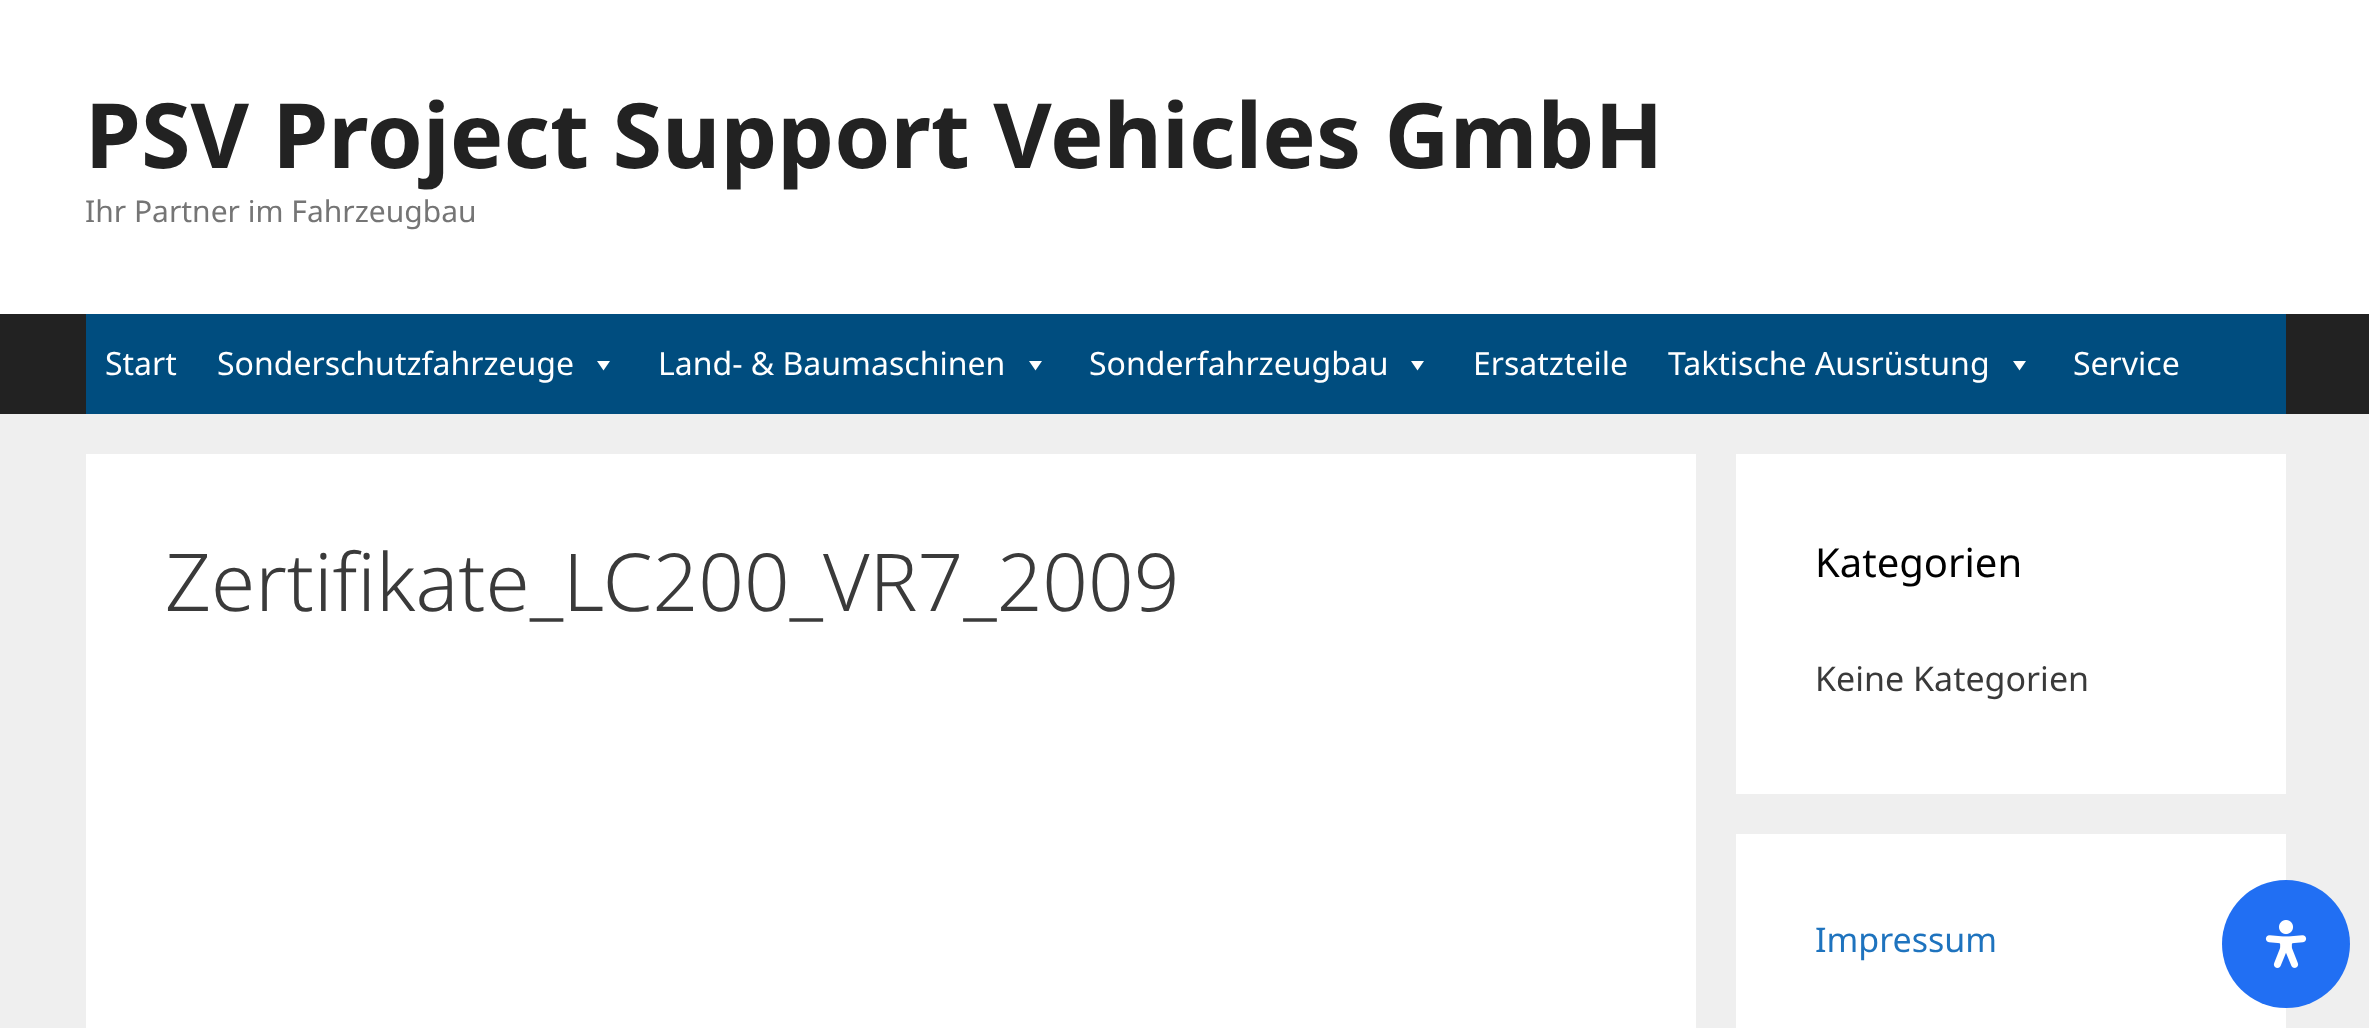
(async () => {
  const canvas = document.querySelector("canvas");
  canvas.width = 2369;
  canvas.height = 1028;
  const ctx = canvas.getContext("2d");
  ctx.miterLimit = 4;
  ctx.fontKerning = "normal";
  async function loadImage(src) {
    const img = new Image();
    img.src = src;
    await img.decode();
    return img;
  }
  let path;

  ctx.fillStyle = "#efefef";
  ctx.fillRect(0, 0, 2369, 1028);
  for (const [x, y, w, h, color] of [
    [0, 0, 2369, 314, "#ffffff"],
    [0, 314, 2369, 100, "#222222"],
    [86, 314, 2200, 100, "#004d7f"],
  ]) {
    ctx.fillStyle = color;
    ctx.fillRect(x, y, w, h);
  }
  ctx.fillStyle = "#ffffff";
  path = new Path2D("M610 361L603.5 370.5L597 361Z");
  ctx.fill(path);
  path = new Path2D("M1042 361L1035.5 370.5L1029 361Z");
  ctx.fill(path);
  path = new Path2D("M1424 361L1417.5 370.5L1411 361Z");
  ctx.fill(path);
  path = new Path2D("M2026 361L2019.5 370.5L2013 361Z");
  ctx.fill(path);
  for (const [x, y, w, h, color] of [
    [86, 454, 1610, 574, "#ffffff"],
    [1736, 454, 550, 340, "#ffffff"],
    [1736, 834, 550, 194, "#ffffff"],
  ]) {
    ctx.fillStyle = color;
    ctx.fillRect(x, y, w, h);
  }
  ctx.fillStyle = "#216ff3";
  ctx.beginPath();
  ctx.arc(2286, 944, 64, 0, Math.PI * 2);
  ctx.fill();
  ctx.drawImage(await loadImage("img/1.png"), 2265, 920, 42, 48);
  ctx.font = "bold 90px Noto Sans";
  ctx.fillStyle = "#222222";
  ctx.fillText("PSV Project Support Vehicles GmbH", 85, 168);
  ctx.font = "30px Noto Sans";
  ctx.fillStyle = "#757575";
  ctx.fillText("Ihr Partner im Fahrzeugbau", 85, 222);
  ctx.font = "32px Noto Sans";
  ctx.fillStyle = "#ffffff";
  for (const [text, x, y] of [
    ["Start", 105, 375],
    ["Sonderschutzfahrzeuge", 217, 375],
    ["Land- & Baumaschinen", 658, 375],
    ["Sonderfahrzeugbau", 1089, 375],
    ["Ersatzteile", 1473, 375],
    ["Taktische Ausrüstung", 1668, 375],
    ["Service", 2073, 375],
  ]) {
    ctx.fillText(text, x, y);
  }
  ctx.font = "300 80px Noto Sans";
  ctx.fillStyle = "#3a3a3a";
  ctx.fillText("Zertifikate_LC200_VR7_2009", 165, 611);
  ctx.font = "40px Noto Sans";
  ctx.fillStyle = "#000000";
  ctx.fillText("Kategorien", 1815, 577);
  ctx.font = "34px Noto Sans";
  ctx.fillStyle = "#3a3a3a";
  ctx.fillText("Keine Kategorien", 1815, 691);
  ctx.fillStyle = "#1e73be";
  ctx.fillText("Impressum", 1815, 952);
})();
